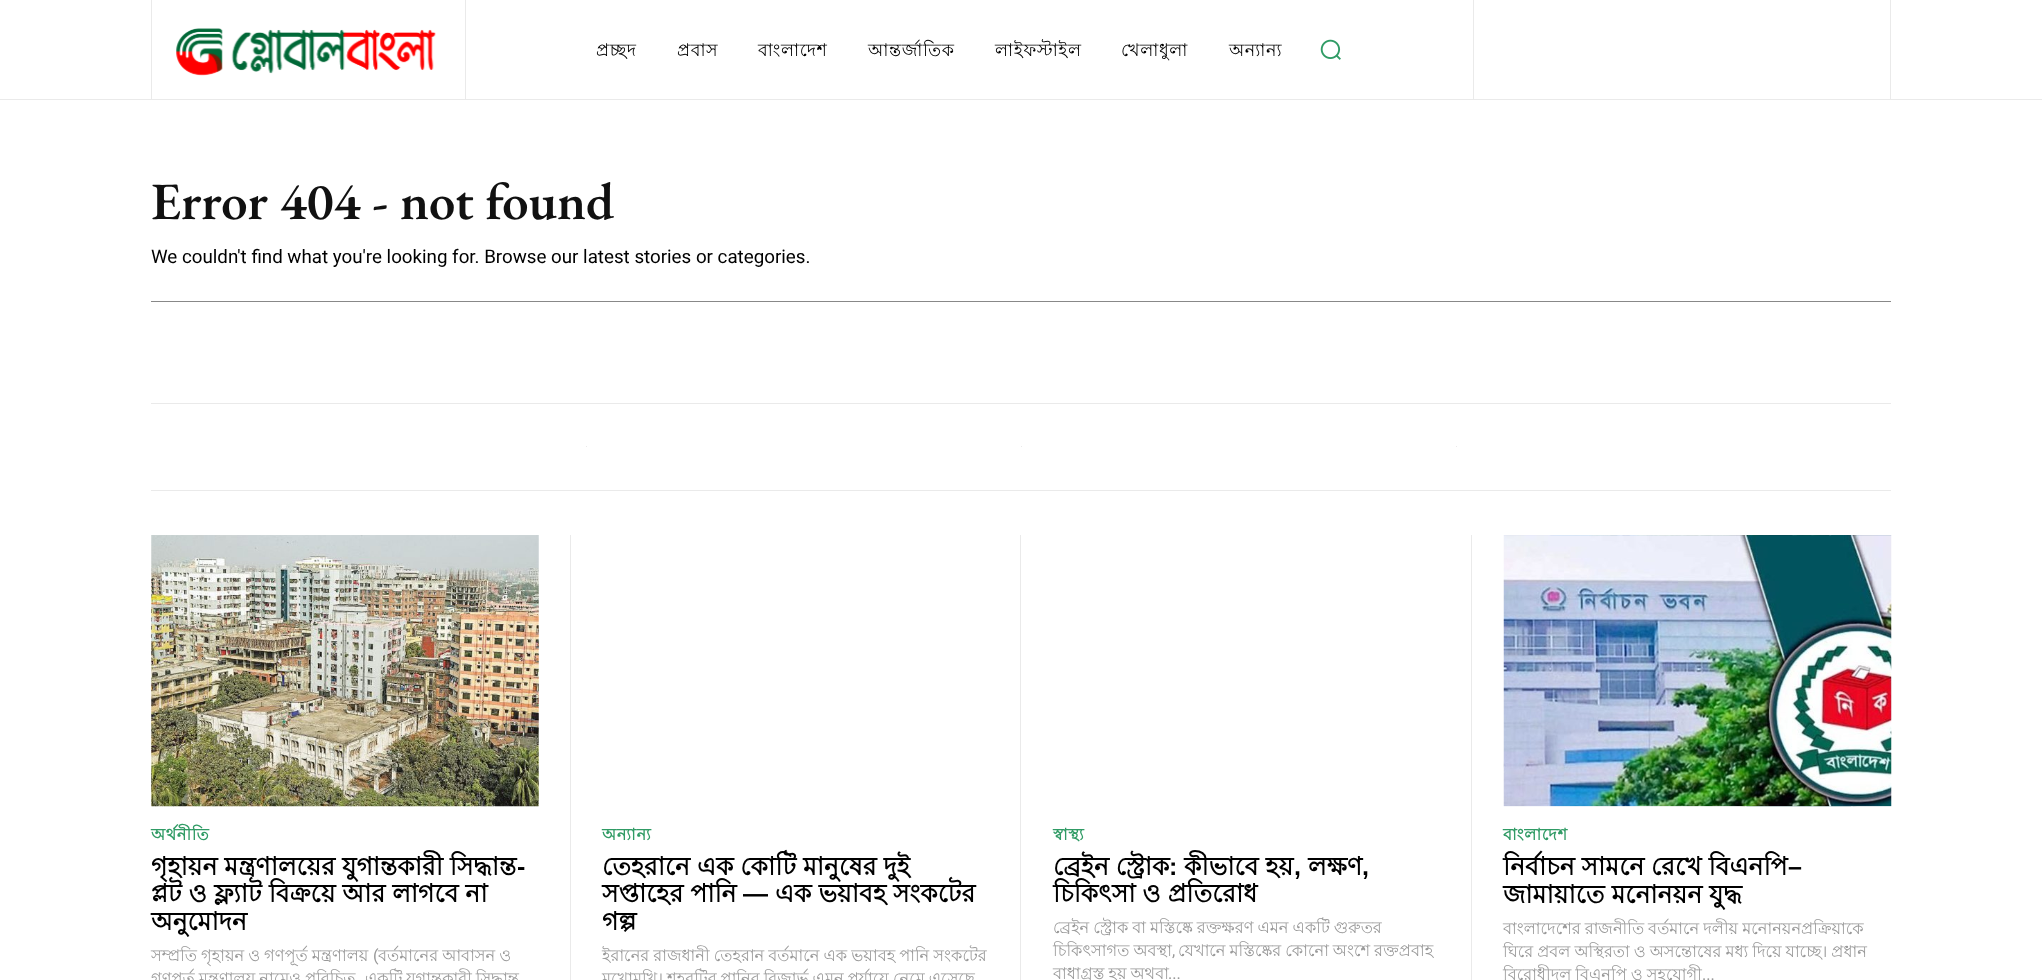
(async () => {
  const canvas = document.querySelector("canvas");
  canvas.width = 2042;
  canvas.height = 980;
  const ctx = canvas.getContext("2d");
  ctx.miterLimit = 4;
  ctx.fontKerning = "normal";
  async function loadImage(src) {
    const img = new Image();
    img.src = src;
    await img.decode();
    return img;
  }

  ctx.fillStyle = "#ffffff";
  ctx.fillRect(0, 0, 2042, 980);
  ctx.fillStyle = "#eaeaea";
  ctx.fillRect(0, 99, 2042, 1);
  ctx.fillRect(151, 0, 1, 99);
  ctx.drawImage(await loadImage("img/1.png"), 176, 28, 260, 48);
  ctx.fillRect(1473, 0, 1, 99);
  ctx.fillRect(465, 0, 1, 99);
  ctx.drawImage(await loadImage("img/2.png"), 1320, 39, 21, 21);
  for (const [x, y, w, h, color] of [
    [1890, 0, 1, 99, "#eaeaea"],
    [151, 301, 1740, 1, "#888888"],
    [151, 403, 1740, 1, "#eaeaea"],
    [151, 490, 1740, 1, "#eaeaea"],
    [586, 446, 1, 1, "#eaeaea"],
    [1021, 446, 1, 1, "#eaeaea"],
    [1456, 446, 1, 1, "#eaeaea"],
    [570, 535, 1, 445, "#eaeaea"],
  ]) {
    ctx.fillStyle = color;
    ctx.fillRect(x, y, w, h);
  }
  ctx.drawImage(await loadImage("img/3.png"), 151, 535, 388, 272);
  ctx.fillRect(1020, 535, 1, 445);
  ctx.fillRect(1471, 535, 1, 445);
  ctx.drawImage(await loadImage("img/4.png"), 1503, 535, 389, 272);
  ctx.letterSpacing = "0.6px";
  ctx.font = "17.5px Lohit Bengali";
  ctx.fillStyle = "#000000";
  for (const [text, x, y] of [
    ["প্রচ্ছদ", 596, 56],
    ["প্রবাস", 677, 56],
    ["বাংলাদেশ", 758, 56],
    ["আন্তর্জাতিক", 868, 56],
    ["লাইফস্টাইল", 995, 56],
    ["খেলাধুলা", 1121, 56],
    ["অন্যান্য", 1229, 56],
  ]) {
    ctx.fillText(text, x, y);
  }
  ctx.letterSpacing = "0px";
  ctx.font = "600 52.5px EB Garamond";
  ctx.fillStyle = "#111111";
  ctx.fillText("Error 404 - not found", 151, 219);
  ctx.font = "18.75px Roboto";
  ctx.fillStyle = "#000000";
  ctx.fillText("We couldn't find what you're looking for. Browse our latest stories or categories.", 151, 263);
  ctx.letterSpacing = "0.6px";
  ctx.font = "bold 16.25px Lohit Bengali";
  ctx.fillStyle = "#309b65";
  ctx.fillText("অর্থনীতি", 151, 840);
  ctx.letterSpacing = "0px";
  ctx.font = "bold 25px Lohit Bengali";
  ctx.fillStyle = "#000000";
  ctx.fillText("গৃহায়ন মন্ত্রণালয়ের যুগান্তকারী সিদ্ধান্ত", 151, 875);
  ctx.font = "bold 25px Liberation Sans";
  ctx.fillText("-", 517, 875);
  ctx.font = "bold 25px Lohit Bengali";
  ctx.fillText("প্লট ও ফ্ল্যাট বিক্রয়ে আর লাগবে না", 151, 902);
  ctx.fillText("অনুমোদন", 151, 930);
  ctx.wordSpacing = "-0.5px";
  ctx.font = "16.25px Lohit Bengali";
  ctx.fillStyle = "#999999";
  ctx.fillText("সম্প্রতি গৃহায়ন ও গণপূর্ত মন্ত্রণালয়", 151, 961);
  ctx.wordSpacing = "0px";
  ctx.font = "16.25px Roboto";
  ctx.fillText("(", 373, 961);
  ctx.wordSpacing = "-0.5px";
  ctx.font = "16.25px Lohit Bengali";
  for (const [text, x, y] of [
    ["বর্তমানের আবাসন ও", 378, 961],
    ["গণপূর্ত মন্ত্রণালয় নামেও পরিচিত", 151, 984],
    ["একটি যুগান্তকারী সিদ্ধান্ত", 365, 984],
  ]) {
    ctx.fillText(text, x, y);
  }
  ctx.letterSpacing = "0.6px";
  ctx.wordSpacing = "0px";
  ctx.font = "bold 16.25px Lohit Bengali";
  ctx.fillStyle = "#309b65";
  ctx.fillText("অন্যান্য", 602, 840);
  ctx.letterSpacing = "0px";
  ctx.font = "bold 25px Lohit Bengali";
  ctx.fillStyle = "#000000";
  ctx.fillText("তেহরানে এক কোটি মানুষের দুই", 602, 875);
  ctx.fillText("সপ্তাহের পানি", 602, 902);
  ctx.font = "bold 25px Liberation Sans";
  ctx.fillText("—", 743, 902);
  ctx.font = "bold 25px Lohit Bengali";
  ctx.fillText("এক ভয়াবহ সংকটের", 775, 902);
  ctx.fillText("গল্প", 602, 930);
  ctx.wordSpacing = "-0.5px";
  ctx.font = "16.25px Lohit Bengali";
  ctx.fillStyle = "#999999";
  ctx.fillText("ইরানের রাজধানী তেহরান বর্তমানে এক ভয়াবহ পানি সংকটের", 602, 961);
  ctx.fillText("মুখোমুখি। শহরটির পানির রিজার্ভ এমন পর্যায়ে নেমে এসেছে", 602, 984);
  ctx.letterSpacing = "0.6px";
  ctx.wordSpacing = "0px";
  ctx.font = "bold 16.25px Lohit Bengali";
  ctx.fillStyle = "#309b65";
  ctx.fillText("স্বাস্থ্য", 1053, 840);
  ctx.letterSpacing = "0px";
  ctx.font = "bold 25px Lohit Bengali";
  ctx.fillStyle = "#000000";
  ctx.fillText("ব্রেইন স্ট্রোক", 1053, 875);
  ctx.fillText("লক্ষণ", 1308, 875);
  ctx.font = "bold 25px Liberation Sans";
  ctx.fillText(":", 1169, 875);
  ctx.font = "bold 25px Lohit Bengali";
  ctx.fillText("কীভাবে হয়", 1184, 875);
  ctx.font = "bold 25px Liberation Sans";
  ctx.fillText(",", 1294, 875);
  ctx.fillText(",", 1362, 875);
  ctx.font = "bold 25px Lohit Bengali";
  ctx.fillText("চিকিৎসা ও প্রতিরোধ", 1053, 902);
  ctx.wordSpacing = "-0.5px";
  ctx.font = "16.25px Lohit Bengali";
  ctx.fillStyle = "#999999";
  ctx.fillText("ব্রেইন স্ট্রোক বা মস্তিষ্কে রক্তক্ষরণ এমন একটি গুরুতর", 1053, 933);
  ctx.fillText("চিকিৎসাগত অবস্থা", 1053, 956);
  ctx.wordSpacing = "0px";
  ctx.font = "16.25px Roboto";
  ctx.fillText(",", 1172, 956);
  ctx.wordSpacing = "-0.5px";
  ctx.font = "16.25px Lohit Bengali";
  ctx.fillText("যেখানে মস্তিষ্কের কোনো অংশে রক্তপ্রবাহ", 1178, 956);
  ctx.fillText("বাধাগ্রস্ত হয় অথবা", 1053, 979);
  ctx.wordSpacing = "0px";
  ctx.font = "16.25px Roboto";
  ctx.fillText("...", 1168, 979);
  ctx.letterSpacing = "0.6px";
  ctx.font = "bold 16.25px Lohit Bengali";
  ctx.fillStyle = "#309b65";
  ctx.fillText("বাংলাদেশ", 1503, 840);
  ctx.letterSpacing = "0px";
  ctx.font = "bold 25px Lohit Bengali";
  ctx.fillStyle = "#000000";
  ctx.fillText("নির্বাচন সামনে রেখে বিএনপি", 1503, 875);
  ctx.font = "bold 25px Liberation Sans";
  ctx.fillText("–", 1788, 875);
  ctx.font = "bold 25px Lohit Bengali";
  ctx.fillText("জামায়াতে মনোনয়ন যুদ্ধ", 1503, 903);
  ctx.wordSpacing = "-0.5px";
  ctx.font = "16.25px Lohit Bengali";
  ctx.fillStyle = "#999999";
  for (const [text, x, y] of [
    ["বাংলাদেশের রাজনীতি বর্তমানে দলীয় মনোনয়নপ্রক্রিয়াকে", 1503, 934],
    ["ঘিরে প্রবল অস্থিরতা ও অসন্তোষের মধ্য দিয়ে যাচ্ছে। প্রধান", 1503, 957],
    ["বিরোধীদল বিএনপি ও সহযোগী", 1503, 980],
  ]) {
    ctx.fillText(text, x, y);
  }
  ctx.wordSpacing = "0px";
  ctx.font = "16.25px Roboto";
  ctx.fillText("...", 1702, 980);
})();
